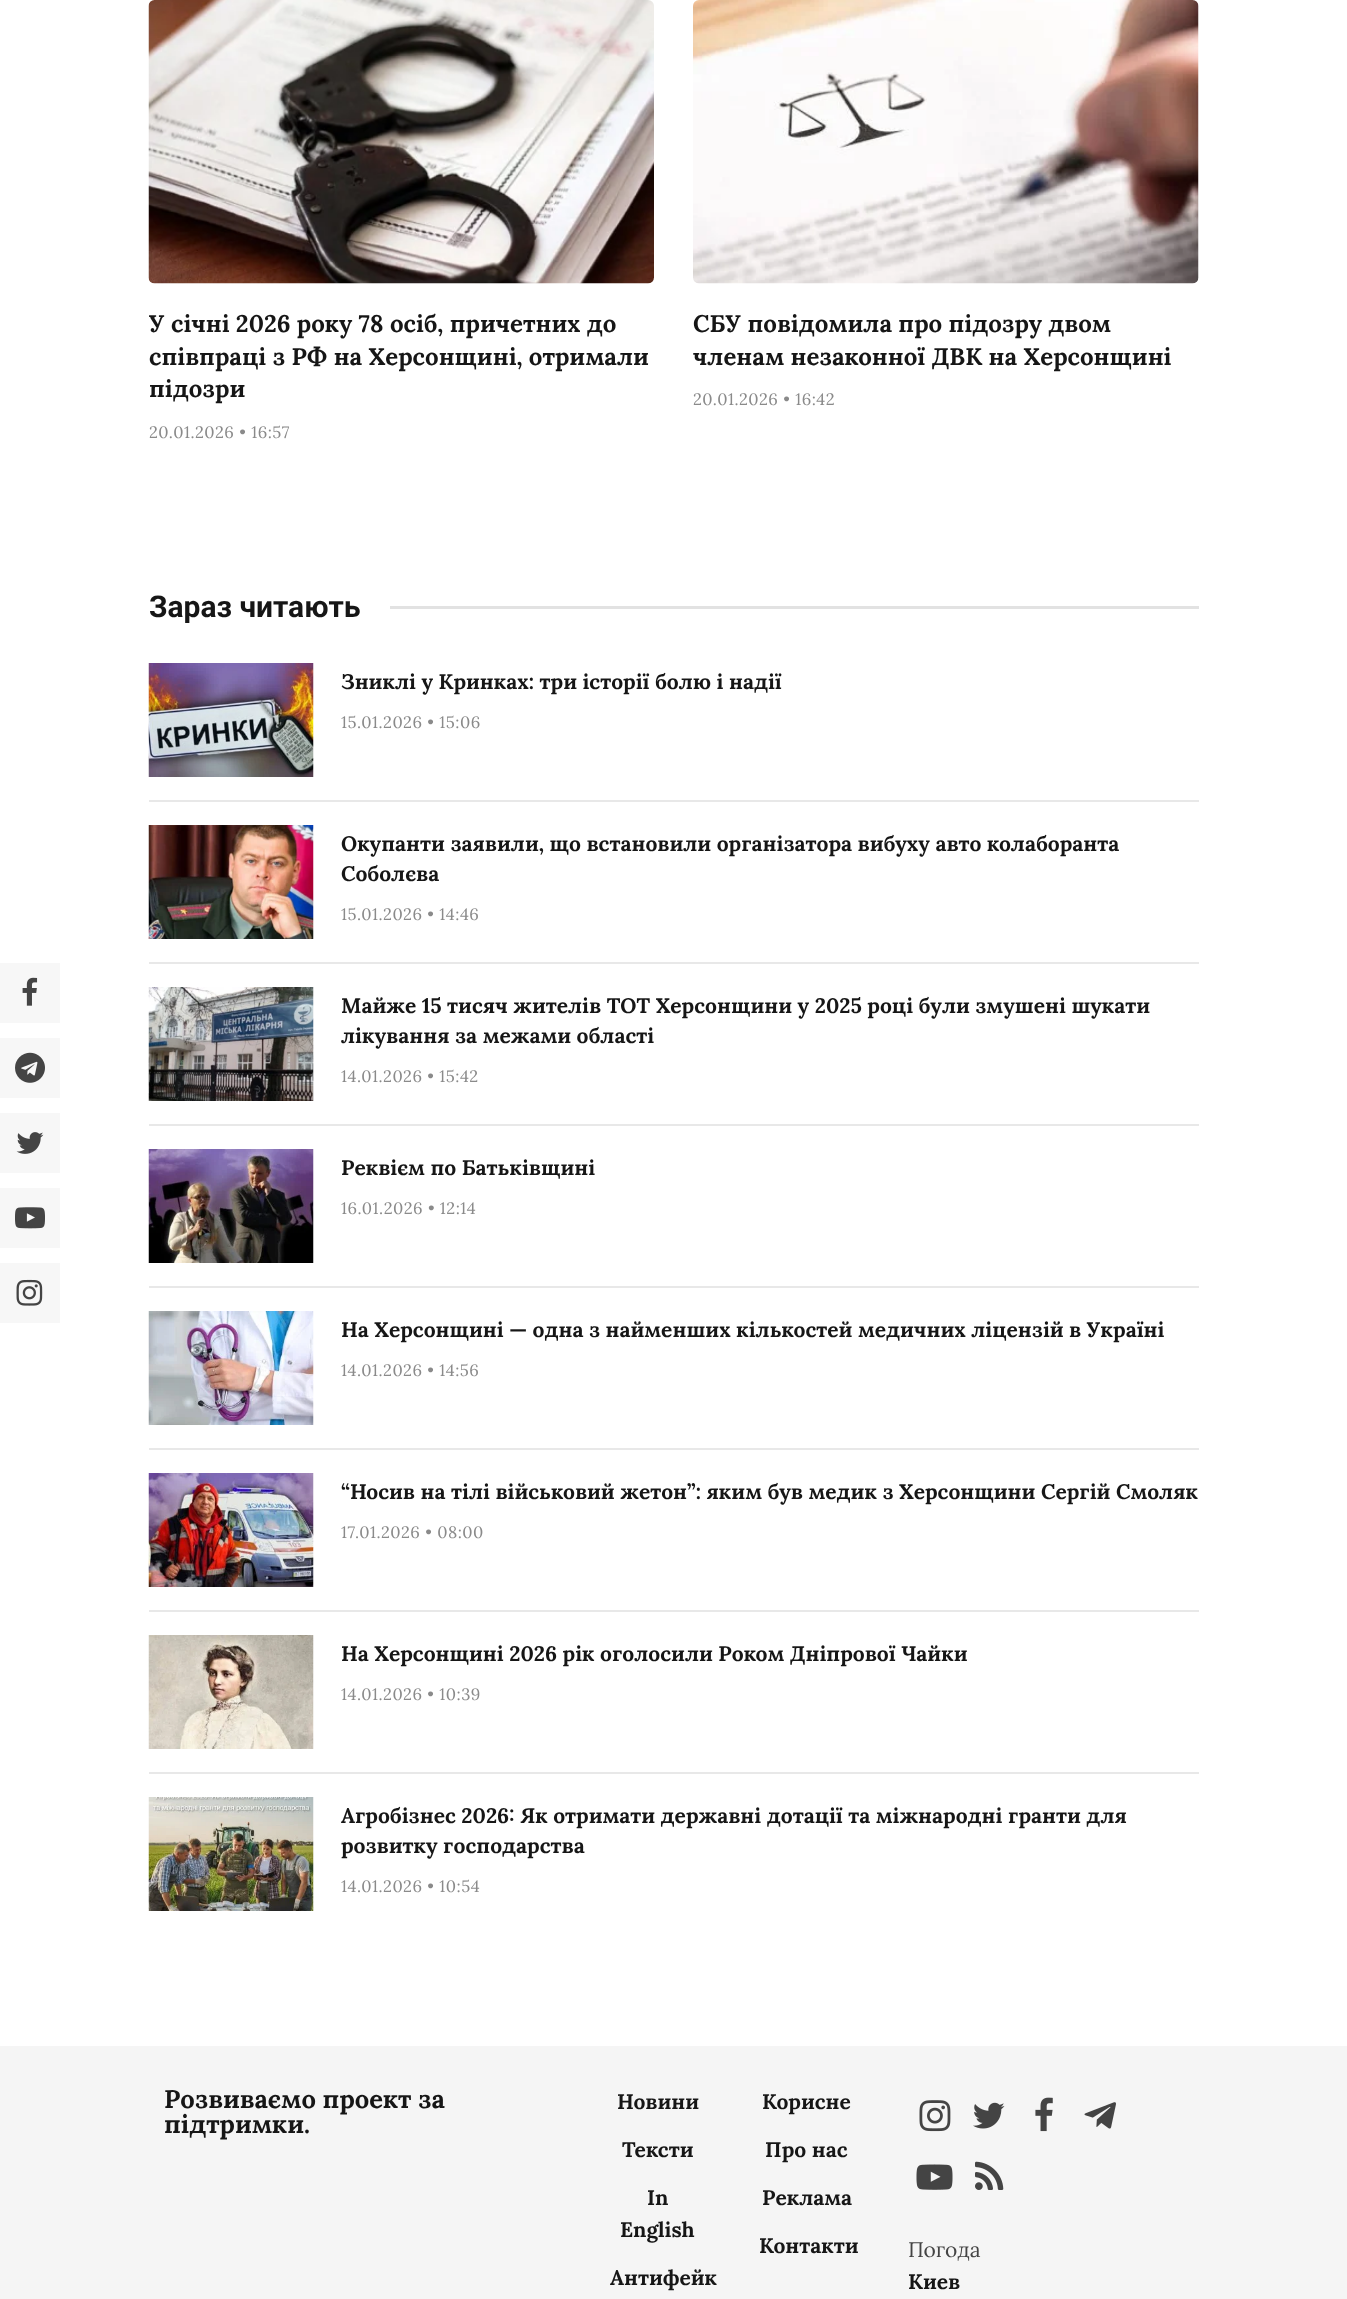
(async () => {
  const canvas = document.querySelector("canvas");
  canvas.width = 1347;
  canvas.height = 2299;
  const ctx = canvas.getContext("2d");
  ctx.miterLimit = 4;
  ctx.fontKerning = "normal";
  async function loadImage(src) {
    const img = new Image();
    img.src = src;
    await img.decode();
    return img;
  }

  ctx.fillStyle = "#ffffff";
  ctx.fillRect(0, 0, 1347, 2299);
  ctx.fillStyle = "#f7f7f7";
  ctx.fillRect(0, 963, 60, 60);
  ctx.drawImage(await loadImage("img/1.png"), 22, 977, 16, 29);
  ctx.fillRect(0, 1038, 60, 60);
  ctx.drawImage(await loadImage("img/2.png"), 15, 1052, 30, 31);
  ctx.fillRect(0, 1113, 60, 60);
  ctx.drawImage(await loadImage("img/3.png"), 16, 1132, 28, 22);
  ctx.fillRect(0, 1188, 60, 60);
  ctx.drawImage(await loadImage("img/4.png"), 15, 1207, 30, 22);
  ctx.fillRect(0, 1263, 60, 60);
  ctx.drawImage(await loadImage("img/5.png"), 16, 1279, 27, 27);
  ctx.drawImage(await loadImage("img/6.png"), 148, 0, 506, 284);
  ctx.drawImage(await loadImage("img/7.png"), 693, 0, 506, 284);
  ctx.fillStyle = "#e2e2e2";
  ctx.fillRect(390, 606, 809, 3);
  ctx.drawImage(await loadImage("img/8.png"), 148, 663, 166, 114);
  ctx.fillStyle = "#e8e8e8";
  ctx.fillRect(149, 800, 1050, 2);
  ctx.drawImage(await loadImage("img/9.png"), 148, 825, 166, 114);
  ctx.fillRect(149, 962, 1050, 2);
  ctx.drawImage(await loadImage("img/10.png"), 148, 987, 166, 114);
  ctx.fillRect(149, 1124, 1050, 2);
  ctx.drawImage(await loadImage("img/11.png"), 148, 1149, 166, 114);
  ctx.fillRect(149, 1286, 1050, 2);
  ctx.drawImage(await loadImage("img/12.png"), 148, 1311, 166, 114);
  ctx.fillRect(149, 1448, 1050, 2);
  ctx.drawImage(await loadImage("img/13.png"), 148, 1473, 166, 114);
  ctx.fillRect(149, 1610, 1050, 2);
  ctx.drawImage(await loadImage("img/14.png"), 148, 1635, 166, 114);
  ctx.fillRect(149, 1772, 1050, 2);
  ctx.drawImage(await loadImage("img/15.png"), 148, 1797, 166, 114);
  ctx.fillStyle = "#f5f5f5";
  ctx.fillRect(0, 2046, 1347, 253);
  ctx.drawImage(await loadImage("img/16.png"), 919, 2100, 32, 32);
  ctx.drawImage(await loadImage("img/17.png"), 973, 2102, 32, 27);
  ctx.drawImage(await loadImage("img/18.png"), 1035, 2097, 18, 35);
  ctx.drawImage(await loadImage("img/19.png"), 1084, 2102, 32, 27);
  ctx.drawImage(await loadImage("img/20.png"), 916, 2164, 37, 26);
  ctx.drawImage(await loadImage("img/21.png"), 975, 2161, 29, 29);
  ctx.font = "bold 24px Lora";
  ctx.fillStyle = "#161616";
  for (const [text, x, y] of [
    ["У січні 2026 року 78 осіб, причетних до", 149, 332],
    ["співпраці з РФ на Херсонщині, отримали", 149, 365],
    ["підозри", 149, 397],
  ]) {
    ctx.fillText(text, x, y);
  }
  ctx.letterSpacing = "0.5px";
  ctx.font = "16.5px Lora";
  ctx.fillStyle = "#8a8a8a";
  ctx.fillText("20.01.2026 • 16:57", 149, 438);
  ctx.letterSpacing = "0px";
  ctx.font = "bold 24px Lora";
  ctx.fillStyle = "#161616";
  ctx.fillText("СБУ повідомила про підозру двом", 693, 332);
  ctx.fillText("членам незаконної ДВК на Херсонщині", 693, 365);
  ctx.letterSpacing = "0.5px";
  ctx.font = "16.5px Lora";
  ctx.fillStyle = "#8a8a8a";
  ctx.fillText("20.01.2026 • 16:42", 693, 405);
  ctx.letterSpacing = "0px";
  ctx.font = "bold 30px Roboto";
  ctx.fillStyle = "#161616";
  ctx.fillText("Зараз читають", 149, 617);
  ctx.font = "bold 21px Lora";
  ctx.fillText("Зниклі у Кринках: три історії болю і надії", 341, 689);
  ctx.letterSpacing = "0.5px";
  ctx.font = "16.5px Lora";
  ctx.fillStyle = "#8a8a8a";
  ctx.fillText("15.01.2026 • 15:06", 341, 728);
  ctx.letterSpacing = "0px";
  ctx.font = "bold 21px Lora";
  ctx.fillStyle = "#161616";
  ctx.fillText("Окупанти заявили, що встановили організатора вибуху авто колаборанта", 341, 851);
  ctx.fillText("Соболєва", 341, 881);
  ctx.letterSpacing = "0.5px";
  ctx.font = "16.5px Lora";
  ctx.fillStyle = "#8a8a8a";
  ctx.fillText("15.01.2026 • 14:46", 341, 920);
  ctx.letterSpacing = "0px";
  ctx.font = "bold 21px Lora";
  ctx.fillStyle = "#161616";
  ctx.fillText("Майже 15 тисяч жителів ТОТ Херсонщини у 2025 році були змушені шукати", 341, 1013);
  ctx.fillText("лікування за межами області", 341, 1043);
  ctx.letterSpacing = "0.5px";
  ctx.font = "16.5px Lora";
  ctx.fillStyle = "#8a8a8a";
  ctx.fillText("14.01.2026 • 15:42", 341, 1082);
  ctx.letterSpacing = "0px";
  ctx.font = "bold 21px Lora";
  ctx.fillStyle = "#161616";
  ctx.fillText("Реквієм по Батьківщині", 341, 1175);
  ctx.letterSpacing = "0.5px";
  ctx.font = "16.5px Lora";
  ctx.fillStyle = "#8a8a8a";
  ctx.fillText("16.01.2026 • 12:14", 341, 1214);
  ctx.letterSpacing = "0px";
  ctx.font = "bold 21px Lora";
  ctx.fillStyle = "#161616";
  ctx.fillText("На Херсонщині — одна з найменших кількостей медичних ліцензій в Україні", 341, 1337);
  ctx.letterSpacing = "0.5px";
  ctx.font = "16.5px Lora";
  ctx.fillStyle = "#8a8a8a";
  ctx.fillText("14.01.2026 • 14:56", 341, 1376);
  ctx.letterSpacing = "0px";
  ctx.font = "bold 21px Lora";
  ctx.fillStyle = "#161616";
  ctx.fillText("“Носив на тілі військовий жетон”: яким був медик з Херсонщини Сергій Смоляк", 341, 1499);
  ctx.letterSpacing = "0.5px";
  ctx.font = "16.5px Lora";
  ctx.fillStyle = "#8a8a8a";
  ctx.fillText("17.01.2026 • 08:00", 341, 1538);
  ctx.letterSpacing = "0px";
  ctx.font = "bold 21px Lora";
  ctx.fillStyle = "#161616";
  ctx.fillText("На Херсонщині 2026 рік оголосили Роком Дніпрової Чайки", 341, 1661);
  ctx.letterSpacing = "0.5px";
  ctx.font = "16.5px Lora";
  ctx.fillStyle = "#8a8a8a";
  ctx.fillText("14.01.2026 • 10:39", 341, 1700);
  ctx.letterSpacing = "0px";
  ctx.font = "bold 21px Lora";
  ctx.fillStyle = "#161616";
  ctx.fillText("Агробізнес 2026: Як отримати державні дотації та міжнародні гранти для", 341, 1823);
  ctx.fillText("розвитку господарства", 341, 1853);
  ctx.letterSpacing = "0.5px";
  ctx.font = "16.5px Lora";
  ctx.fillStyle = "#8a8a8a";
  ctx.fillText("14.01.2026 • 10:54", 341, 1892);
  ctx.letterSpacing = "0px";
  ctx.font = "bold 25.5px Lora";
  ctx.fillStyle = "#161616";
  ctx.fillText("Розвиваємо проект за", 164, 2108);
  ctx.fillText("підтримки.", 164, 2133);
  ctx.font = "bold 21px Lora";
  for (const [text, x, y] of [
    ["Новини", 617, 2109],
    ["Тексти", 622, 2157],
    ["In", 647, 2205],
    ["English", 620, 2237],
    ["Антифейк", 610, 2285],
    ["Корисне", 762, 2109],
    ["Про нас", 765, 2157],
    ["Реклама", 762, 2205],
    ["Контакти", 759, 2253],
  ]) {
    ctx.fillText(text, x, y);
  }
  ctx.font = "21px Lora";
  ctx.fillStyle = "#444444";
  ctx.fillText("Погода", 908, 2257);
  ctx.font = "bold 21px Lora";
  ctx.fillStyle = "#161616";
  ctx.fillText("Киев", 908, 2289);
})();
